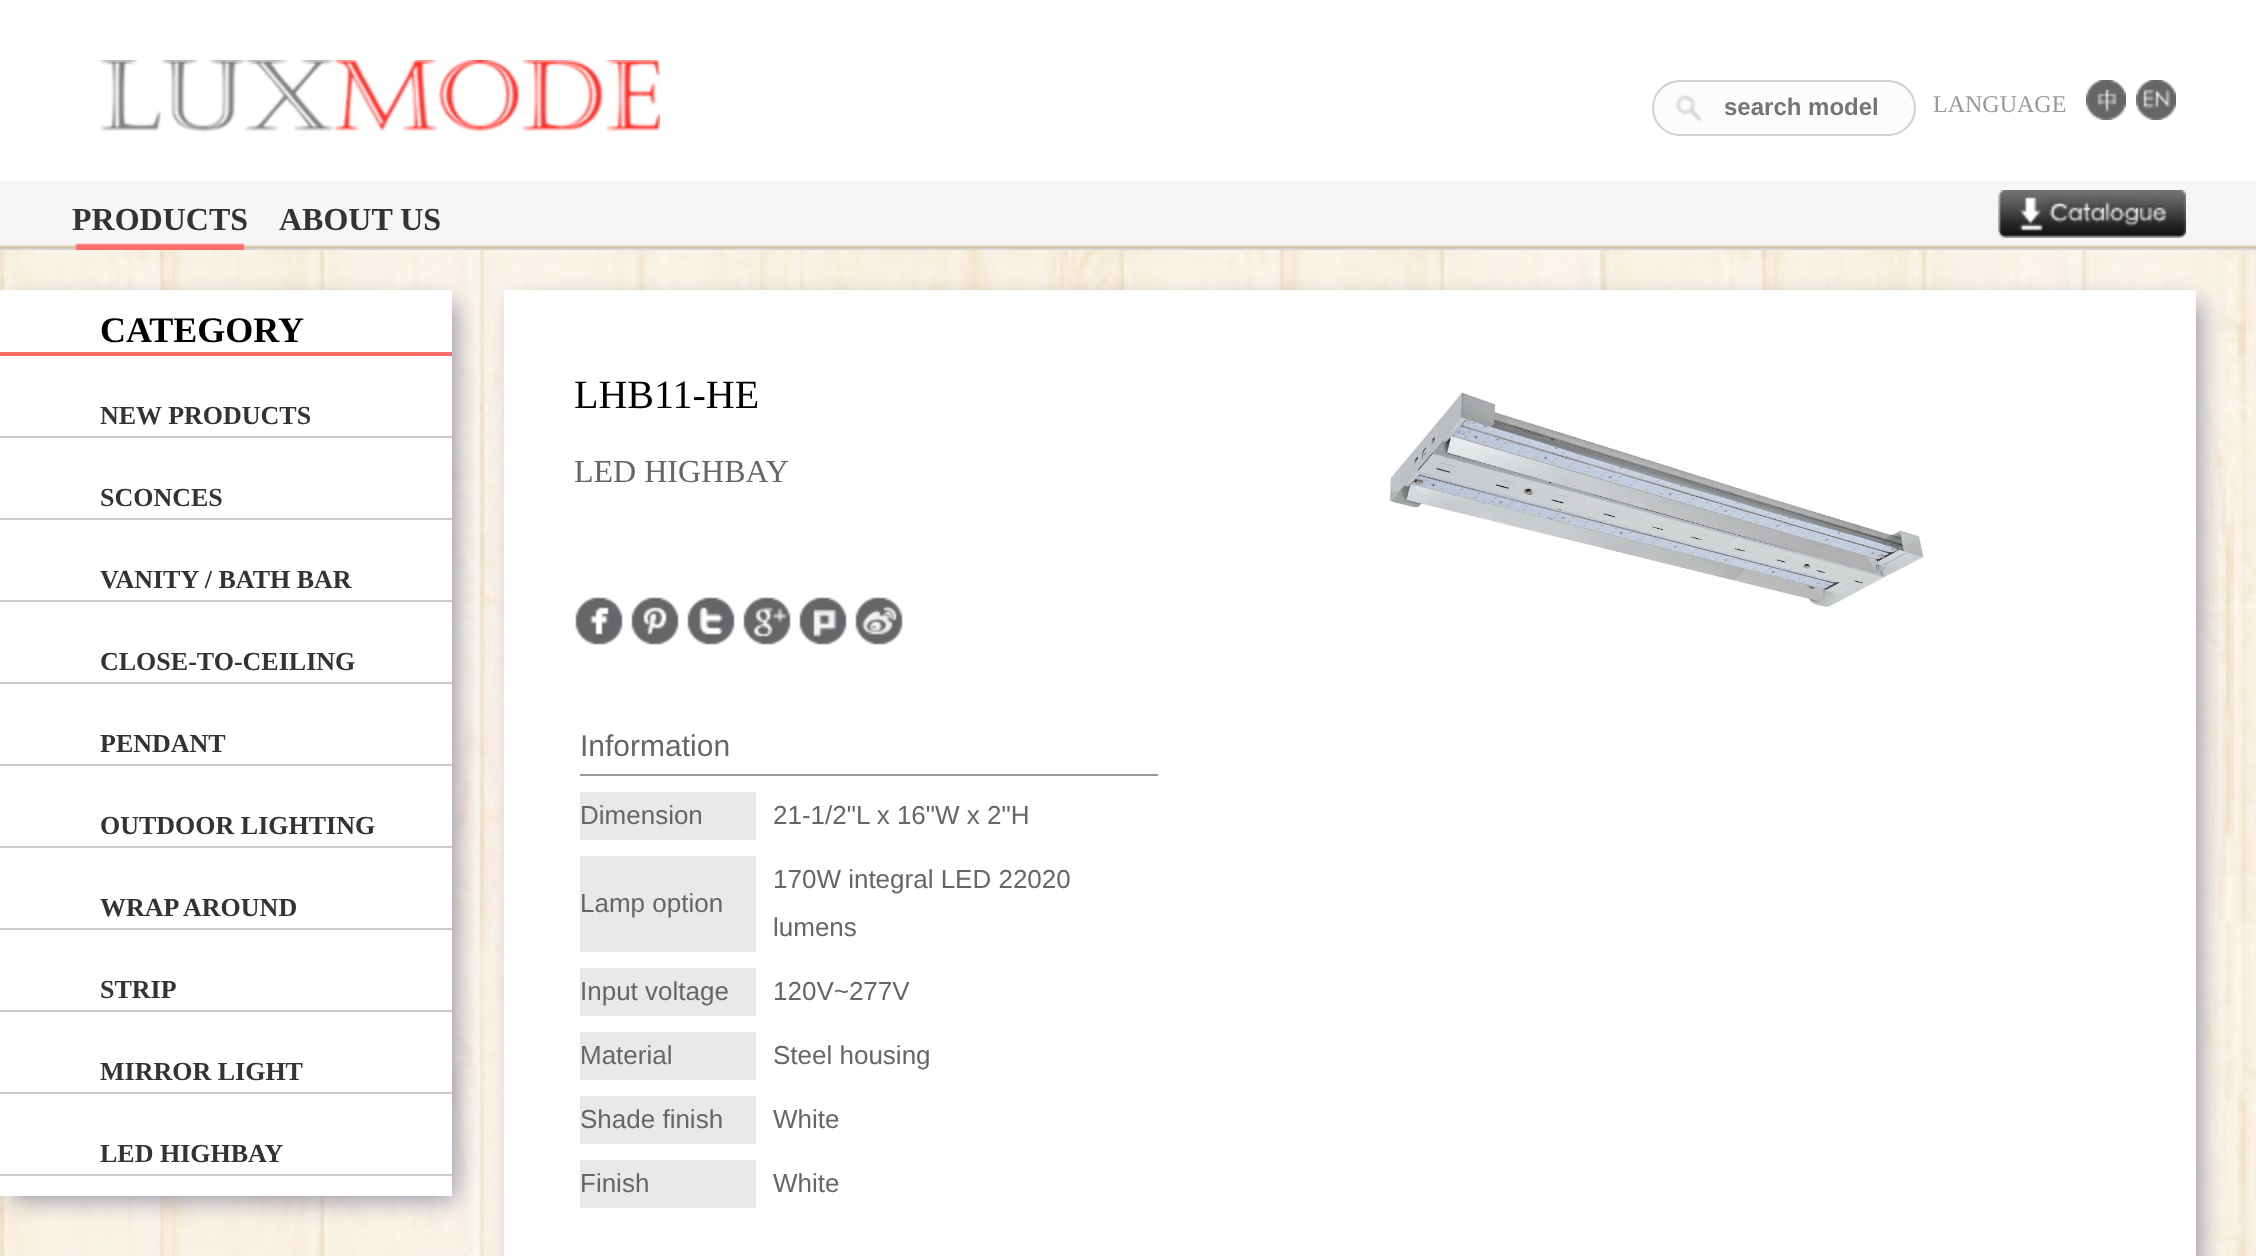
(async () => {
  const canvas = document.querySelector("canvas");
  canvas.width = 2256;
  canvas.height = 1256;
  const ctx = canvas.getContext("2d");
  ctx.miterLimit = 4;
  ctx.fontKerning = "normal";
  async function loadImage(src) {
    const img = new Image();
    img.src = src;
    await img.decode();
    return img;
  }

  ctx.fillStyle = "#ffffff";
  ctx.fillRect(0, 0, 2256, 1256);
  ctx.drawImage(await loadImage("img/1.png"), 0, 250, 2256, 1006);
  ctx.drawImage(await loadImage("img/2.png"), 100, 60, 560, 72);
  ctx.fillStyle = "#fcfcfc";
  ctx.beginPath();
  ctx.roundRect(1652, 80, 264, 56, 28);
  ctx.fill();
  ctx.drawImage(await loadImage("img/3.png"), 1675, 95, 28, 27);
  ctx.beginPath();
  ctx.roundRect(1653, 81, 262, 54, 27);
  ctx.strokeStyle = "#d1d1d1";
  ctx.lineWidth = 2;
  ctx.stroke();
  ctx.drawImage(await loadImage("img/4.png"), 2086, 80, 40, 40);
  ctx.drawImage(await loadImage("img/5.png"), 2136, 80, 40, 40);
  ctx.drawImage(await loadImage("img/6.png"), 0, 180, 2256, 70);
  ctx.drawImage(await loadImage("img/7.png"), 1998, 190, 188, 48);
  ctx.drawImage(await loadImage("img/8.png"), 75, 243, 170, 7);
  ctx.fillStyle = "rgba(51, 51, 102, 0.5)";
  ctx.filter = "blur(12px)";
  ctx.beginPath();
  ctx.rect(12, 302, 444, 898);
  ctx.fill();
  ctx.filter = "none";
  for (const [x, y, w, h, color] of [
    [0, 290, 452, 906, "#ffffff"],
    [0, 352, 452, 4, "#ff6d69"],
    [0, 436, 452, 2, "#cccccc"],
    [0, 518, 452, 2, "#cccccc"],
    [0, 600, 452, 2, "#cccccc"],
    [0, 682, 452, 2, "#cccccc"],
    [0, 764, 452, 2, "#cccccc"],
    [0, 846, 452, 2, "#cccccc"],
    [0, 928, 452, 2, "#cccccc"],
    [0, 1010, 452, 2, "#cccccc"],
    [0, 1092, 452, 2, "#cccccc"],
    [0, 1174, 452, 2, "#cccccc"],
  ]) {
    ctx.fillStyle = color;
    ctx.fillRect(x, y, w, h);
  }
  ctx.fillStyle = "rgba(51, 51, 102, 0.5)";
  ctx.filter = "blur(12px)";
  ctx.beginPath();
  ctx.rect(516, 302, 1684, 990);
  ctx.fill();
  ctx.filter = "none";
  ctx.fillStyle = "#ffffff";
  ctx.fillRect(504, 290, 1692, 966);
  ctx.drawImage(await loadImage("img/9.png"), 575, 597, 48, 48);
  ctx.drawImage(await loadImage("img/10.png"), 631, 597, 48, 48);
  ctx.drawImage(await loadImage("img/11.png"), 687, 597, 48, 48);
  ctx.drawImage(await loadImage("img/12.png"), 743, 597, 48, 48);
  ctx.drawImage(await loadImage("img/13.png"), 799, 597, 48, 48);
  ctx.drawImage(await loadImage("img/14.png"), 855, 597, 48, 48);
  for (const [x, y, w, h, color] of [
    [580, 774, 578, 2, "#999999"],
    [580, 792, 176, 48, "#e9e9e9"],
    [580, 856, 176, 96, "#e9e9e9"],
    [580, 968, 176, 48, "#e9e9e9"],
    [580, 1032, 176, 48, "#e9e9e9"],
    [580, 1096, 176, 48, "#e9e9e9"],
    [580, 1160, 176, 48, "#e9e9e9"],
  ]) {
    ctx.fillStyle = color;
    ctx.fillRect(x, y, w, h);
  }
  ctx.drawImage(await loadImage("img/15.png"), 1390, 391, 534, 216);
  ctx.font = "bold 24px Liberation Sans";
  ctx.fillStyle = "#757575";
  ctx.fillText("search model", 1724, 115);
  ctx.font = "24px Liberation Serif";
  ctx.fillStyle = "#999999";
  ctx.fillText("LANGUAGE", 1933, 112);
  ctx.font = "bold 32px Liberation Serif";
  ctx.fillStyle = "#333333";
  ctx.fillText("PRODUCTS", 72, 230);
  ctx.fillText("ABOUT US", 279, 230);
  ctx.font = "bold 36px Liberation Serif";
  ctx.fillStyle = "#000000";
  ctx.fillText("CATEGORY", 100, 342);
  ctx.font = "bold 26px Liberation Serif";
  ctx.fillStyle = "#333333";
  for (const [text, x, y] of [
    ["NEW PRODUCTS", 100, 424],
    ["SCONCES", 100, 506],
    ["VANITY / BATH BAR", 100, 588],
    ["CLOSE-TO-CEILING", 100, 670],
    ["PENDANT", 100, 752],
    ["OUTDOOR LIGHTING", 100, 834],
    ["WRAP AROUND", 100, 916],
    ["STRIP", 100, 998],
    ["MIRROR LIGHT", 100, 1080],
    ["LED HIGHBAY", 100, 1162],
  ]) {
    ctx.fillText(text, x, y);
  }
  ctx.font = "40px Liberation Serif";
  ctx.fillStyle = "#000000";
  ctx.fillText("LHB11-HE", 574, 408);
  ctx.font = "32px Liberation Serif";
  ctx.fillStyle = "#666666";
  ctx.fillText("LED HIGHBAY", 574, 482);
  ctx.font = "30px Liberation Sans";
  ctx.fillText("Information", 580, 756);
  ctx.font = "26px Liberation Sans";
  for (const [text, x, y] of [
    ["Dimension", 580, 824],
    ["21-1/2\"L x 16\"W x 2\"H", 773, 824],
    ["Lamp option", 580, 912],
    ["170W integral LED 22020", 773, 888],
    ["lumens", 773, 936],
    ["Input voltage", 580, 1000],
    ["120V~277V", 773, 1000],
    ["Material", 580, 1064],
    ["Steel housing", 773, 1064],
    ["Shade finish", 580, 1128],
    ["White", 773, 1128],
    ["Finish", 580, 1192],
    ["White", 773, 1192],
  ]) {
    ctx.fillText(text, x, y);
  }
})();
